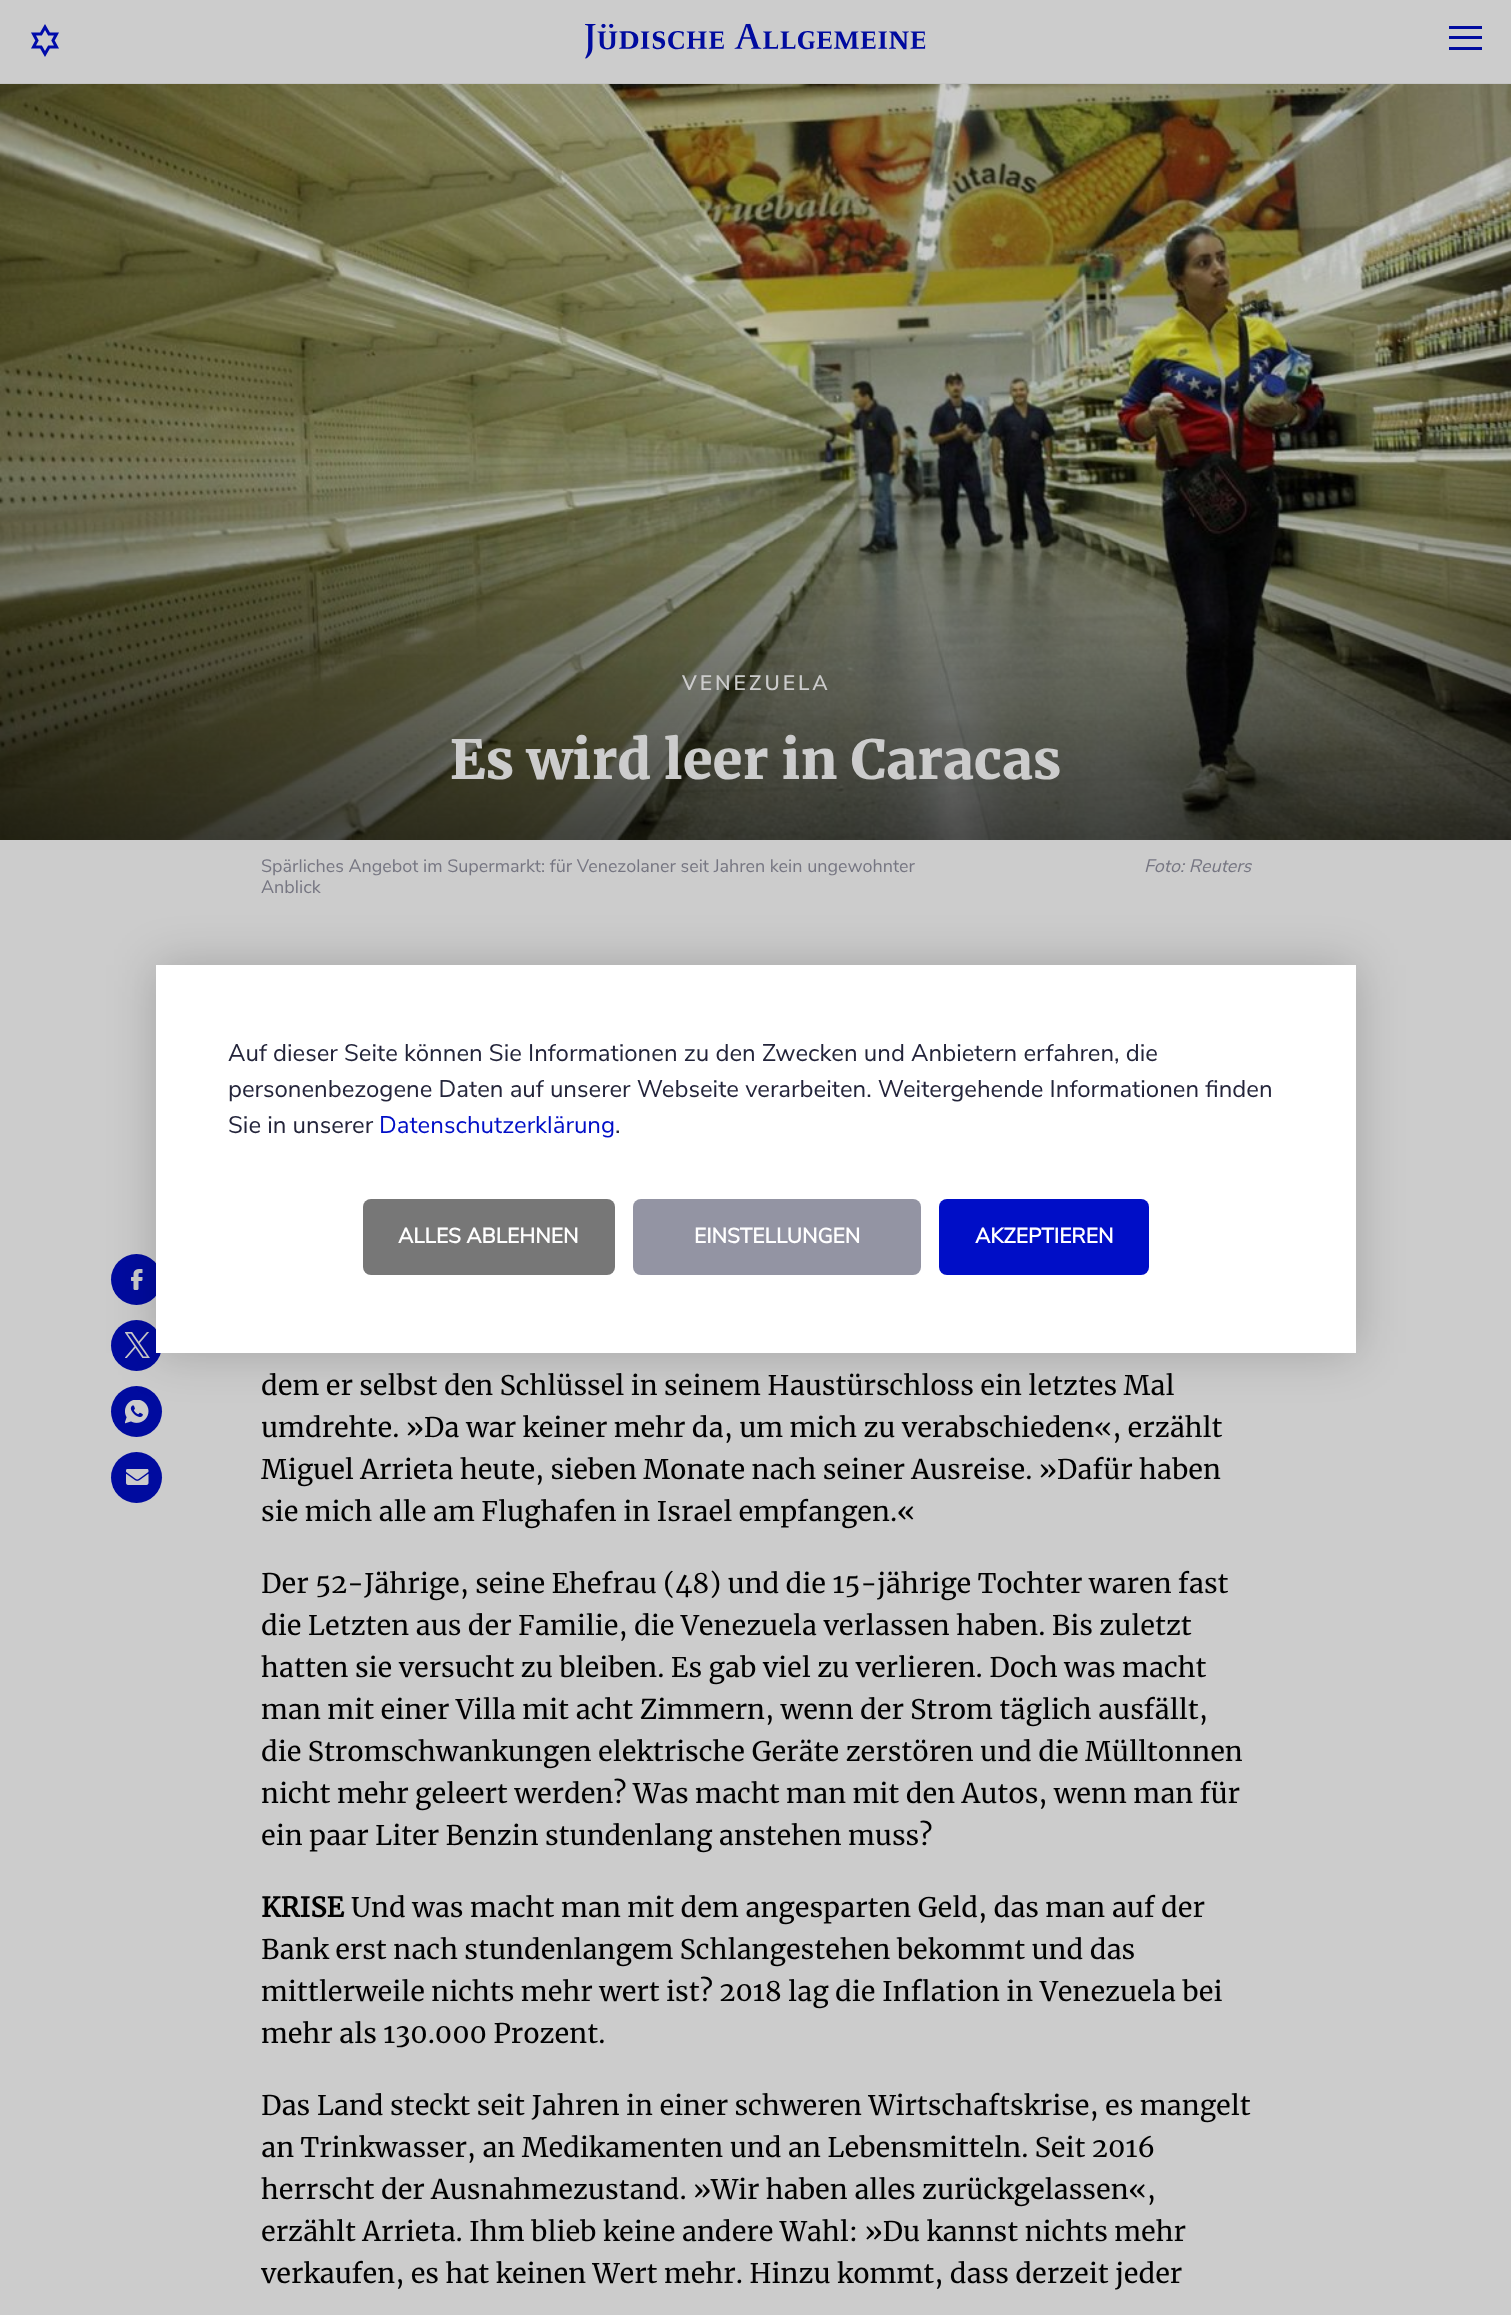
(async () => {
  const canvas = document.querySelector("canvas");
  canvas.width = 1511;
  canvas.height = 2315;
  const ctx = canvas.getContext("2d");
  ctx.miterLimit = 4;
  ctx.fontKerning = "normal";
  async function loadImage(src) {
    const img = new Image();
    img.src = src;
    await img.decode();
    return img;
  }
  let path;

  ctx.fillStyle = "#cccccc";
  ctx.fillRect(0, 0, 1511, 2315);
  path = new Path2D("M45 27L41 34H33.5L37 40.5L33.5 47H41L45 54L49 47H56.5L53 40.5L56.5 34H49Z");
  ctx.strokeStyle = "#000bab";
  ctx.lineWidth = 3;
  ctx.stroke(path);
  ctx.drawImage(await loadImage("img/1.png"), 585, 23, 341, 36);
  for (const [x, y, w, h, color] of [
    [1449, 26, 33, 3, "#000b9f"],
    [1449, 36, 33, 3, "#000b9f"],
    [1449, 47, 33, 3, "#000b9f"],
    [0, 83, 1511, 1, "#c4c4c4"],
  ]) {
    ctx.fillStyle = color;
    ctx.fillRect(x, y, w, h);
  }
  ctx.drawImage(await loadImage("img/2.png"), 0, 84, 1511, 756);
  ctx.fillStyle = "#000b9f";
  ctx.beginPath();
  ctx.arc(136.5, 1279.5, 25.5, 0, Math.PI * 2);
  ctx.fill();
  ctx.drawImage(await loadImage("img/3.png"), 131, 1269, 12, 21);
  ctx.beginPath();
  ctx.arc(136.5, 1345.5, 25.5, 0, Math.PI * 2);
  ctx.fill();
  ctx.drawImage(await loadImage("img/4.png"), 125, 1332, 25, 26);
  ctx.beginPath();
  ctx.arc(136.5, 1411.5, 25.5, 0, Math.PI * 2);
  ctx.fill();
  ctx.drawImage(await loadImage("img/5.png"), 125, 1400, 24, 24);
  ctx.beginPath();
  ctx.arc(136.5, 1477.5, 25.5, 0, Math.PI * 2);
  ctx.fill();
  ctx.drawImage(await loadImage("img/6.png"), 126, 1469, 23, 16);
  ctx.fillStyle = "rgba(0, 0, 0, 0.2)";
  ctx.filter = "blur(24px)";
  ctx.beginPath();
  ctx.rect(156, 965, 1200, 388);
  ctx.fill();
  ctx.filter = "none";
  ctx.fillStyle = "#ffffff";
  ctx.fillRect(156, 965, 1200, 388);
  ctx.fillStyle = "#777777";
  ctx.beginPath();
  ctx.roundRect(363, 1199, 252, 76, 8);
  ctx.fill();
  ctx.fillStyle = "#9394a3";
  ctx.beginPath();
  ctx.roundRect(633, 1199, 288, 76, 8);
  ctx.fill();
  ctx.fillStyle = "#000ec7";
  ctx.beginPath();
  ctx.roundRect(939, 1199, 210, 76, 8);
  ctx.fill();
  ctx.letterSpacing = "3px";
  ctx.font = "600 21px Nunito Sans";
  ctx.fillStyle = "#cccccc";
  ctx.fillText("VENEZUELA", 682, 690);
  ctx.letterSpacing = "0px";
  ctx.font = "900 54px Merriweather";
  ctx.fillText("Es wird leer in Caracas", 450, 779);
  ctx.font = "18px Nunito Sans";
  ctx.fillStyle = "#767682";
  ctx.fillText("Spärliches Angebot im Supermarkt: für Venezolaner seit Jahren kein ungewohnter", 261, 872);
  ctx.fillText("Anblick", 261, 893);
  ctx.font = "italic 18px Nunito Sans";
  ctx.fillText("Foto: Reuters", 1144, 872);
  ctx.font = "27px Merriweather";
  ctx.fillStyle = "#000000";
  for (const [text, x, y] of [
    ["dem er selbst den Schlüssel in seinem Haustürschloss ein letztes Mal", 261, 1395],
    ["umdrehte. »Da war keiner mehr da, um mich zu verabschieden«, erzählt", 261, 1437],
    ["Miguel Arrieta heute, sieben Monate nach seiner Ausreise. »Dafür haben", 261, 1479],
    ["sie mich alle am Flughafen in Israel empfangen.«", 261, 1521],
    ["Der 52-Jährige, seine Ehefrau (48) und die 15-jährige Tochter waren fast", 261, 1593],
    ["die Letzten aus der Familie, die Venezuela verlassen haben. Bis zuletzt", 261, 1635],
    ["hatten sie versucht zu bleiben. Es gab viel zu verlieren. Doch was macht", 261, 1677],
    ["man mit einer Villa mit acht Zimmern, wenn der Strom täglich ausfällt,", 261, 1719],
    ["die Stromschwankungen elektrische Geräte zerstören und die Mülltonnen", 261, 1761],
    ["nicht mehr geleert werden? Was macht man mit den Autos, wenn man für", 261, 1803],
    ["ein paar Liter Benzin stundenlang anstehen muss?", 261, 1845],
  ]) {
    ctx.fillText(text, x, y);
  }
  ctx.font = "bold 27px Merriweather";
  ctx.fillText("KRISE", 261, 1917);
  ctx.font = "27px Merriweather";
  for (const [text, x, y] of [
    ["Und was macht man mit dem angesparten Geld, das man auf der", 351, 1917],
    ["Bank erst nach stundenlangem Schlangestehen bekommt und das", 261, 1959],
    ["mittlerweile nichts mehr wert ist? 2018 lag die Inflation in Venezuela bei", 261, 2001],
    ["mehr als 130.000 Prozent.", 261, 2043],
    ["Das Land steckt seit Jahren in einer schweren Wirtschaftskrise, es mangelt", 261, 2115],
    ["an Trinkwasser, an Medikamenten und an Lebensmitteln. Seit 2016", 261, 2157],
    ["herrscht der Ausnahmezustand. »Wir haben alles zurückgelassen«,", 261, 2199],
    ["erzählt Arrieta. Ihm blieb keine andere Wahl: »Du kannst nichts mehr", 261, 2241],
    ["verkaufen, es hat keinen Wert mehr. Hinzu kommt, dass derzeit jeder", 261, 2283],
  ]) {
    ctx.fillText(text, x, y);
  }
  ctx.font = "24px Nunito Sans";
  ctx.fillStyle = "#23243a";
  for (const [text, x, y] of [
    ["Auf dieser Seite können Sie Informationen zu den Zwecken und Anbietern erfahren, die", 228, 1061],
    ["personenbezogene Daten auf unserer Webseite verarbeiten. Weitergehende Informationen finden", 228, 1097],
    ["Sie in unserer", 228, 1133],
  ]) {
    ctx.fillText(text, x, y);
  }
  ctx.fillStyle = "#000ec7";
  ctx.fillText("Datenschutzerklärung", 379, 1133);
  ctx.fillStyle = "#23243a";
  ctx.fillText(".", 615, 1133);
  ctx.font = "bold 21px Nunito Sans";
  ctx.fillStyle = "#ffffff";
  for (const [text, x, y] of [
    ["ALLES ABLEHNEN", 398, 1243],
    ["EINSTELLUNGEN", 694, 1243],
    ["AKZEPTIEREN", 975, 1243],
  ]) {
    ctx.fillText(text, x, y);
  }
})();
